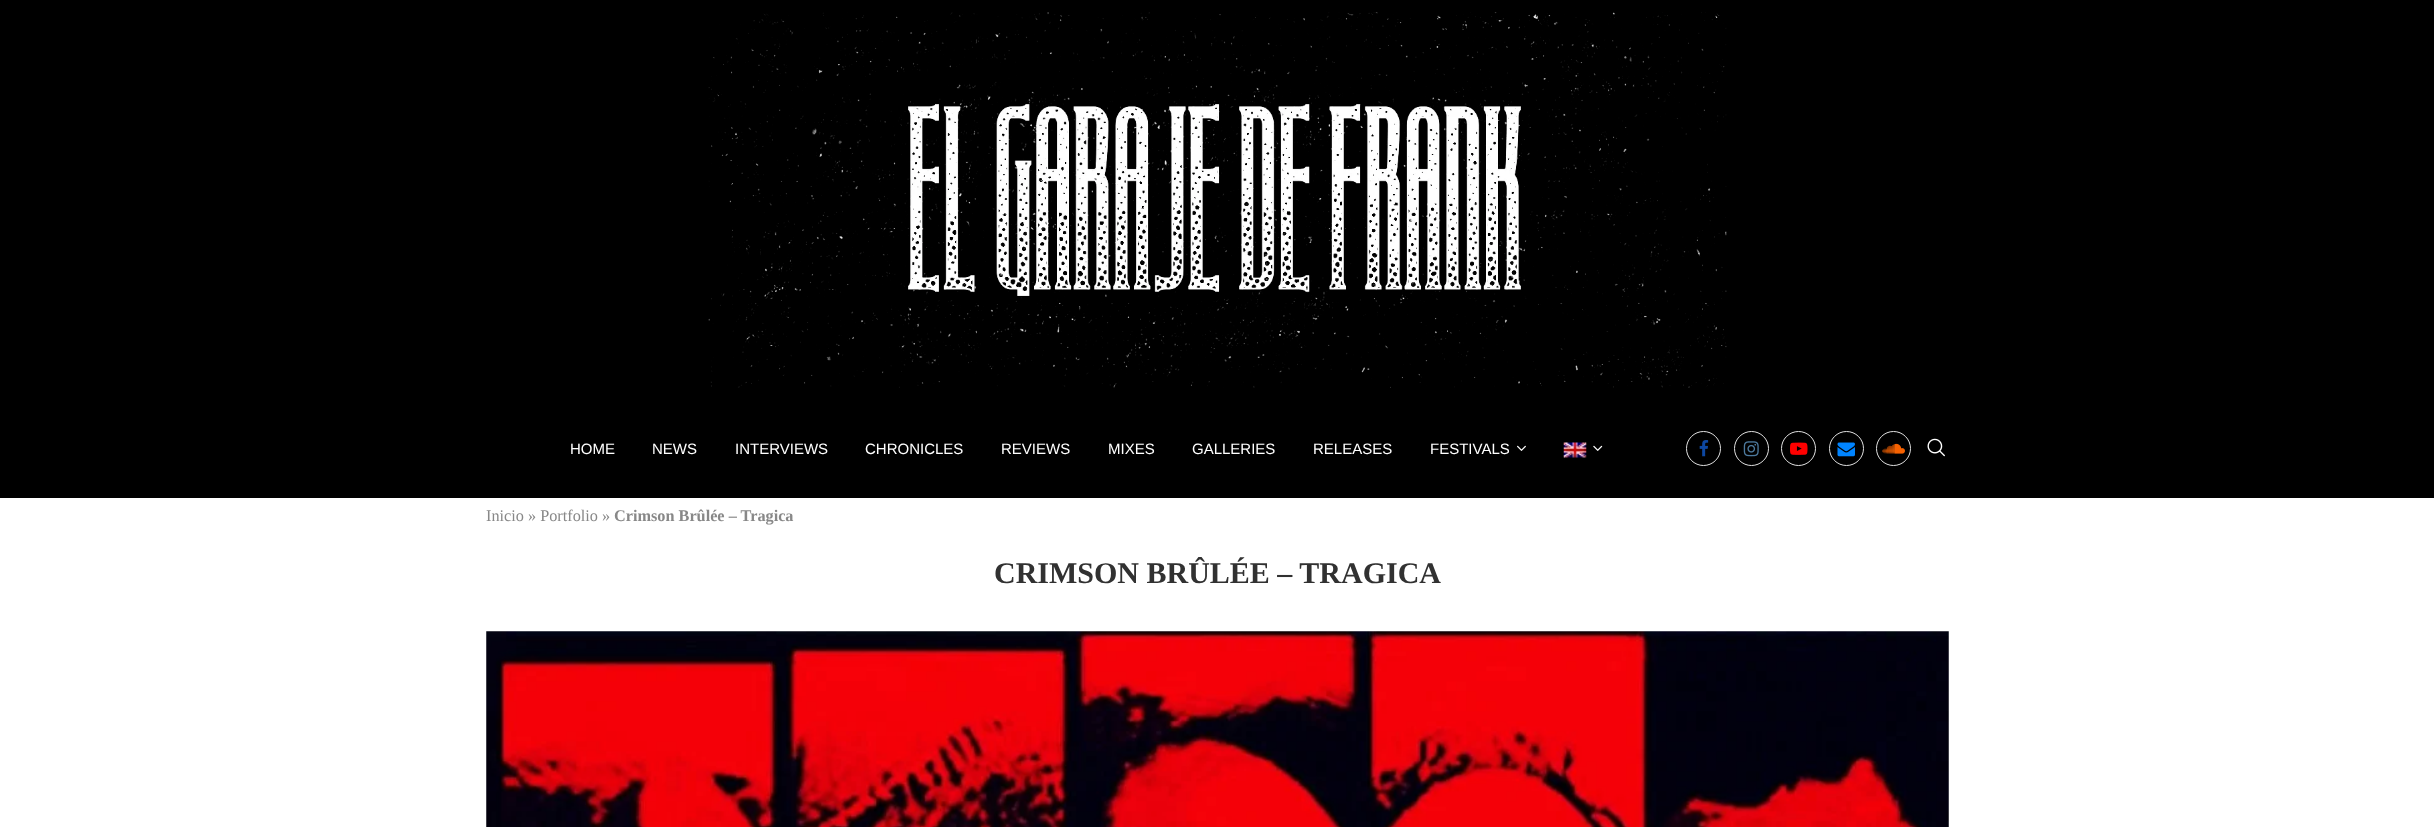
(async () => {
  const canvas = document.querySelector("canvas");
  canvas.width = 2434;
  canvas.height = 827;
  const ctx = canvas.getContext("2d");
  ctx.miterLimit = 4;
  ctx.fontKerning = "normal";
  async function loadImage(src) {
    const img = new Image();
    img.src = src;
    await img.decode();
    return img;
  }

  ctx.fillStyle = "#ffffff";
  ctx.fillRect(0, 0, 2434, 827);
  ctx.fillStyle = "#000000";
  ctx.fillRect(0, 0, 2434, 498);
  ctx.drawImage(await loadImage("img/1.png"), 708, 12, 1019, 376);
  ctx.drawImage(await loadImage("img/2.png"), 1517, 445, 9, 6);
  ctx.drawImage(await loadImage("img/3.png"), 1563, 442, 24, 16);
  ctx.drawImage(await loadImage("img/4.png"), 1593, 445, 10, 6);
  ctx.beginPath();
  ctx.arc(1703.5, 448.5, 17, 0, Math.PI * 2);
  ctx.strokeStyle = "#e0e0e0";
  ctx.stroke();
  ctx.drawImage(await loadImage("img/5.png"), 1699, 440, 10, 17);
  ctx.beginPath();
  ctx.arc(1751.5, 448.5, 17, 0, Math.PI * 2);
  ctx.stroke();
  ctx.drawImage(await loadImage("img/6.png"), 1743, 441, 16, 16);
  ctx.beginPath();
  ctx.arc(1798.5, 448.5, 17, 0, Math.PI * 2);
  ctx.stroke();
  ctx.drawImage(await loadImage("img/7.png"), 1790, 442, 18, 13);
  ctx.beginPath();
  ctx.arc(1846.5, 448.5, 17, 0, Math.PI * 2);
  ctx.stroke();
  ctx.drawImage(await loadImage("img/8.png"), 1837, 442, 18, 15);
  ctx.beginPath();
  ctx.arc(1893.5, 448.5, 17, 0, Math.PI * 2);
  ctx.stroke();
  ctx.drawImage(await loadImage("img/9.png"), 1882, 443, 23, 11);
  ctx.drawImage(await loadImage("img/10.png"), 1927, 438, 18, 19);
  ctx.drawImage(await loadImage("img/11.png"), 486, 631, 1463, 196);
  ctx.font = "15px Liberation Sans";
  ctx.fillStyle = "#ffffff";
  for (const [text, x, y] of [
    ["HOME", 570, 454],
    ["NEWS", 652, 454],
    ["INTERVIEWS", 735, 454],
    ["CHRONICLES", 865, 454],
    ["REVIEWS", 1001, 454],
    ["MIXES", 1108, 454],
    ["GALLERIES", 1192, 454],
    ["RELEASES", 1313, 454],
    ["FESTIVALS", 1430, 454],
  ]) {
    ctx.fillText(text, x, y);
  }
  ctx.font = "16.25px Liberation Serif";
  ctx.fillStyle = "#888888";
  ctx.fillText("Inicio » Portfolio »", 486, 521);
  ctx.font = "bold 16.25px Liberation Serif";
  ctx.fillText("Crimson Brûlée – Tragica", 614, 521);
  ctx.font = "bold 30px Liberation Serif";
  ctx.fillStyle = "#313131";
  ctx.fillText("CRIMSON BRÛLÉE – TRAGICA", 994, 583);
})();
